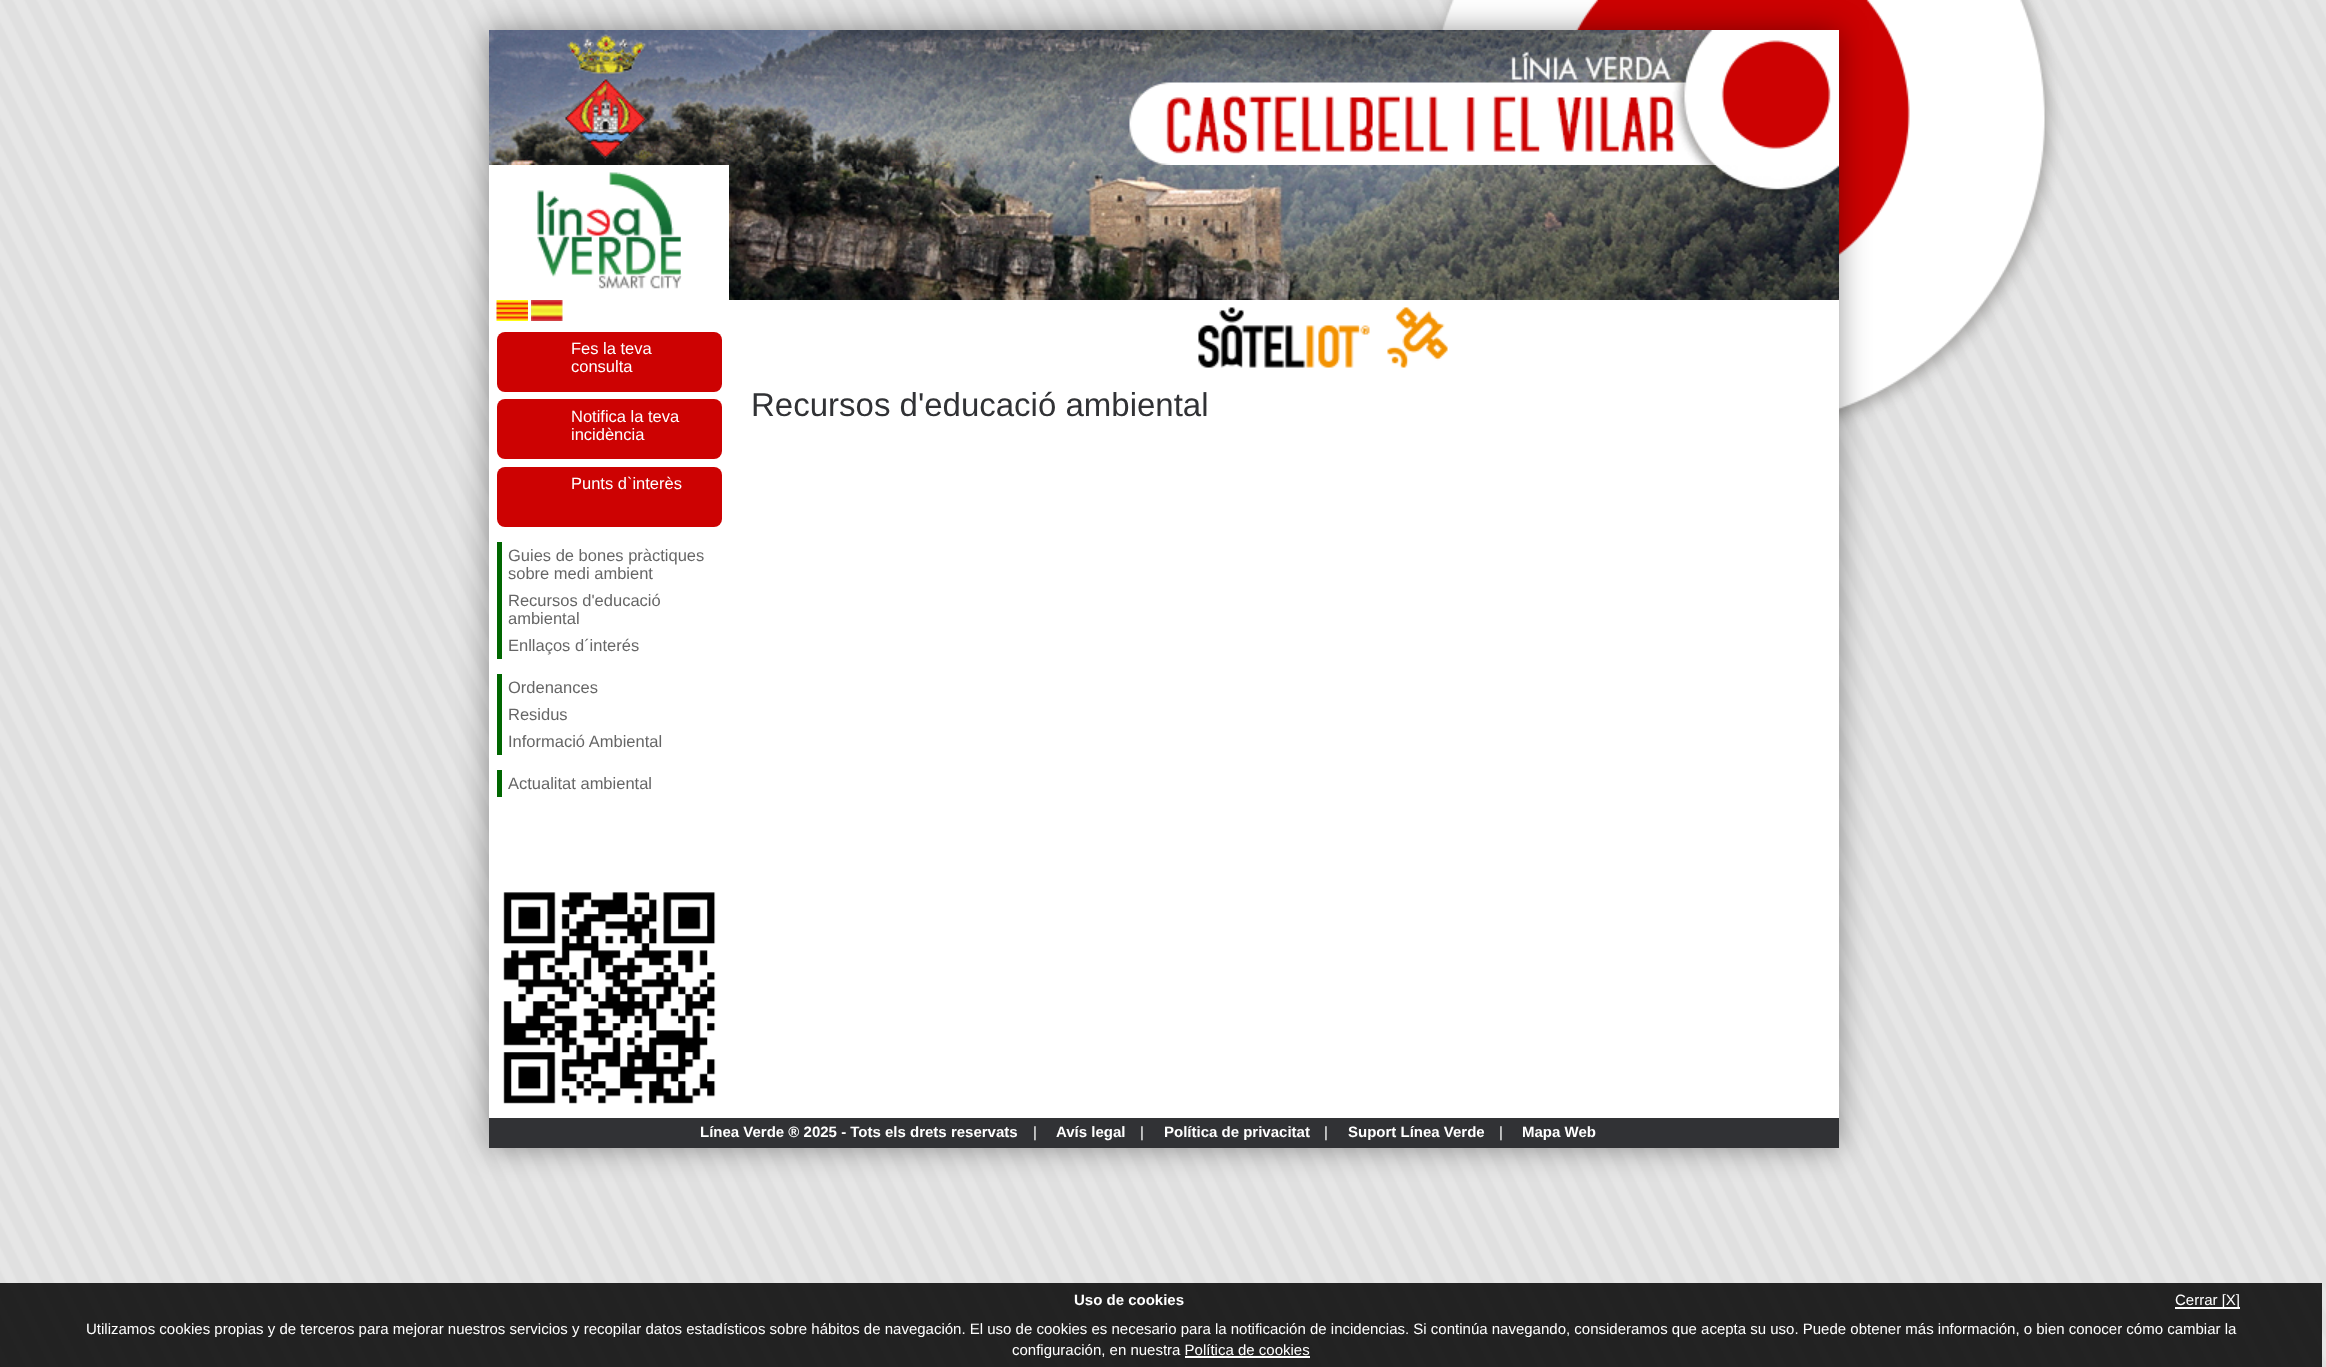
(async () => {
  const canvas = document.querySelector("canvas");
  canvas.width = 2326;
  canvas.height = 1367;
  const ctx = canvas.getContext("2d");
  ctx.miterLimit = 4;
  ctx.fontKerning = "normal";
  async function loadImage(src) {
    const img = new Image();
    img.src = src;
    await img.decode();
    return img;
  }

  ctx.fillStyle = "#ffffff";
  ctx.fillRect(0, 0, 2326, 1367);
  ctx.drawImage(await loadImage("img/1.png"), 0, 0, 2326, 1367);
  ctx.fillStyle = "rgba(0, 0, 0, 0.4)";
  ctx.filter = "blur(15px)";
  ctx.beginPath();
  ctx.rect(489, 30, 1350, 1118);
  ctx.fill();
  ctx.filter = "none";
  ctx.fillStyle = "#ffffff";
  ctx.fillRect(489, 30, 1350, 1088);
  ctx.drawImage(await loadImage("img/2.png"), 489, 30, 1342, 135);
  ctx.drawImage(await loadImage("img/3.png"), 537, 172, 145, 117);
  ctx.drawImage(await loadImage("img/4.png"), 729, 165, 1110, 135);
  ctx.drawImage(await loadImage("img/5.png"), 1198, 307, 250, 61);
  ctx.drawImage(await loadImage("img/6.png"), 496, 300, 32, 21);
  ctx.drawImage(await loadImage("img/7.png"), 531, 300, 32, 21);
  ctx.fillStyle = "#cd0202";
  ctx.beginPath();
  ctx.roundRect(497, 332, 225, 60, 8);
  ctx.fill();
  ctx.beginPath();
  ctx.roundRect(497, 399, 225, 60, 8);
  ctx.fill();
  ctx.beginPath();
  ctx.roundRect(497, 467, 225, 60, 8);
  ctx.fill();
  for (const [x, y, w, h, color] of [
    [497, 542, 5, 117, "#006600"],
    [497, 674, 5, 81, "#006600"],
    [497, 770, 5, 27, "#006600"],
  ]) {
    ctx.fillStyle = color;
    ctx.fillRect(x, y, w, h);
  }
  ctx.drawImage(await loadImage("img/8.png"), 503, 892, 213, 212);
  for (const [x, y, w, h, color] of [
    [489, 1118, 1350, 30, "#313235"],
    [0, 1283, 2322, 84, "rgba(0, 0, 0, 0.85)"],
    [2175, 1307, 65, 2, "#ffffff"],
    [1185, 1356, 125, 2, "#ffffff"],
  ]) {
    ctx.fillStyle = color;
    ctx.fillRect(x, y, w, h);
  }
  ctx.font = "16.5px Liberation Sans";
  for (const [text, x, y] of [
    ["Fes la teva", 571, 354],
    ["consulta", 571, 372],
    ["Notifica la teva", 571, 422],
    ["incidència", 571, 440],
    ["Punts d`interès", 571, 489],
  ]) {
    ctx.fillText(text, x, y);
  }
  ctx.fillStyle = "#666666";
  for (const [text, x, y] of [
    ["Guies de bones pràctiques", 508, 561],
    ["sobre medi ambient", 508, 579],
    ["Recursos d'educació", 508, 606],
    ["ambiental", 508, 624],
    ["Enllaços d´interés", 508, 651],
    ["Ordenances", 508, 693],
    ["Residus", 508, 720],
    ["Informació Ambiental", 508, 747],
    ["Actualitat ambiental", 508, 789],
  ]) {
    ctx.fillText(text, x, y);
  }
  ctx.font = "33px Liberation Sans";
  ctx.fillStyle = "#313235";
  ctx.fillText("Recursos d'educació ambiental", 751, 416);
  ctx.font = "bold 15px Liberation Sans";
  ctx.fillStyle = "#ffffff";
  ctx.fillText("Línea Verde ® 2025 - Tots els drets reservats", 700, 1137);
  ctx.font = "15px Liberation Sans";
  ctx.fillText("|", 1033, 1137);
  ctx.font = "bold 15px Liberation Sans";
  ctx.fillText("Avís legal", 1056, 1137);
  ctx.font = "15px Liberation Sans";
  ctx.fillText("|", 1140, 1137);
  ctx.font = "bold 15px Liberation Sans";
  ctx.fillText("Política de privacitat", 1164, 1137);
  ctx.font = "15px Liberation Sans";
  ctx.fillText("|", 1324, 1137);
  ctx.font = "bold 15px Liberation Sans";
  ctx.fillText("Suport Línea Verde", 1348, 1137);
  ctx.font = "15px Liberation Sans";
  ctx.fillText("|", 1499, 1137);
  ctx.font = "bold 15px Liberation Sans";
  ctx.fillText("Mapa Web", 1522, 1137);
  ctx.fillText("Uso de cookies", 1074, 1305);
  ctx.font = "15px Liberation Sans";
  for (const [text, x, y] of [
    ["Cerrar [X]", 2175, 1305],
    ["Utilizamos cookies propias y de terceros para mejorar nuestros servicios y recopilar datos estadísticos sobre hábitos de navegación. El uso de cookies es necesario para la notificación de incidencias. Si continúa navegando, consideramos que acepta su uso. Puede obtener más información, o bien conocer cómo cambiar la", 86, 1334],
    ["configuración, en nuestra Política de cookies", 1012, 1355],
  ]) {
    ctx.fillText(text, x, y);
  }
})();
